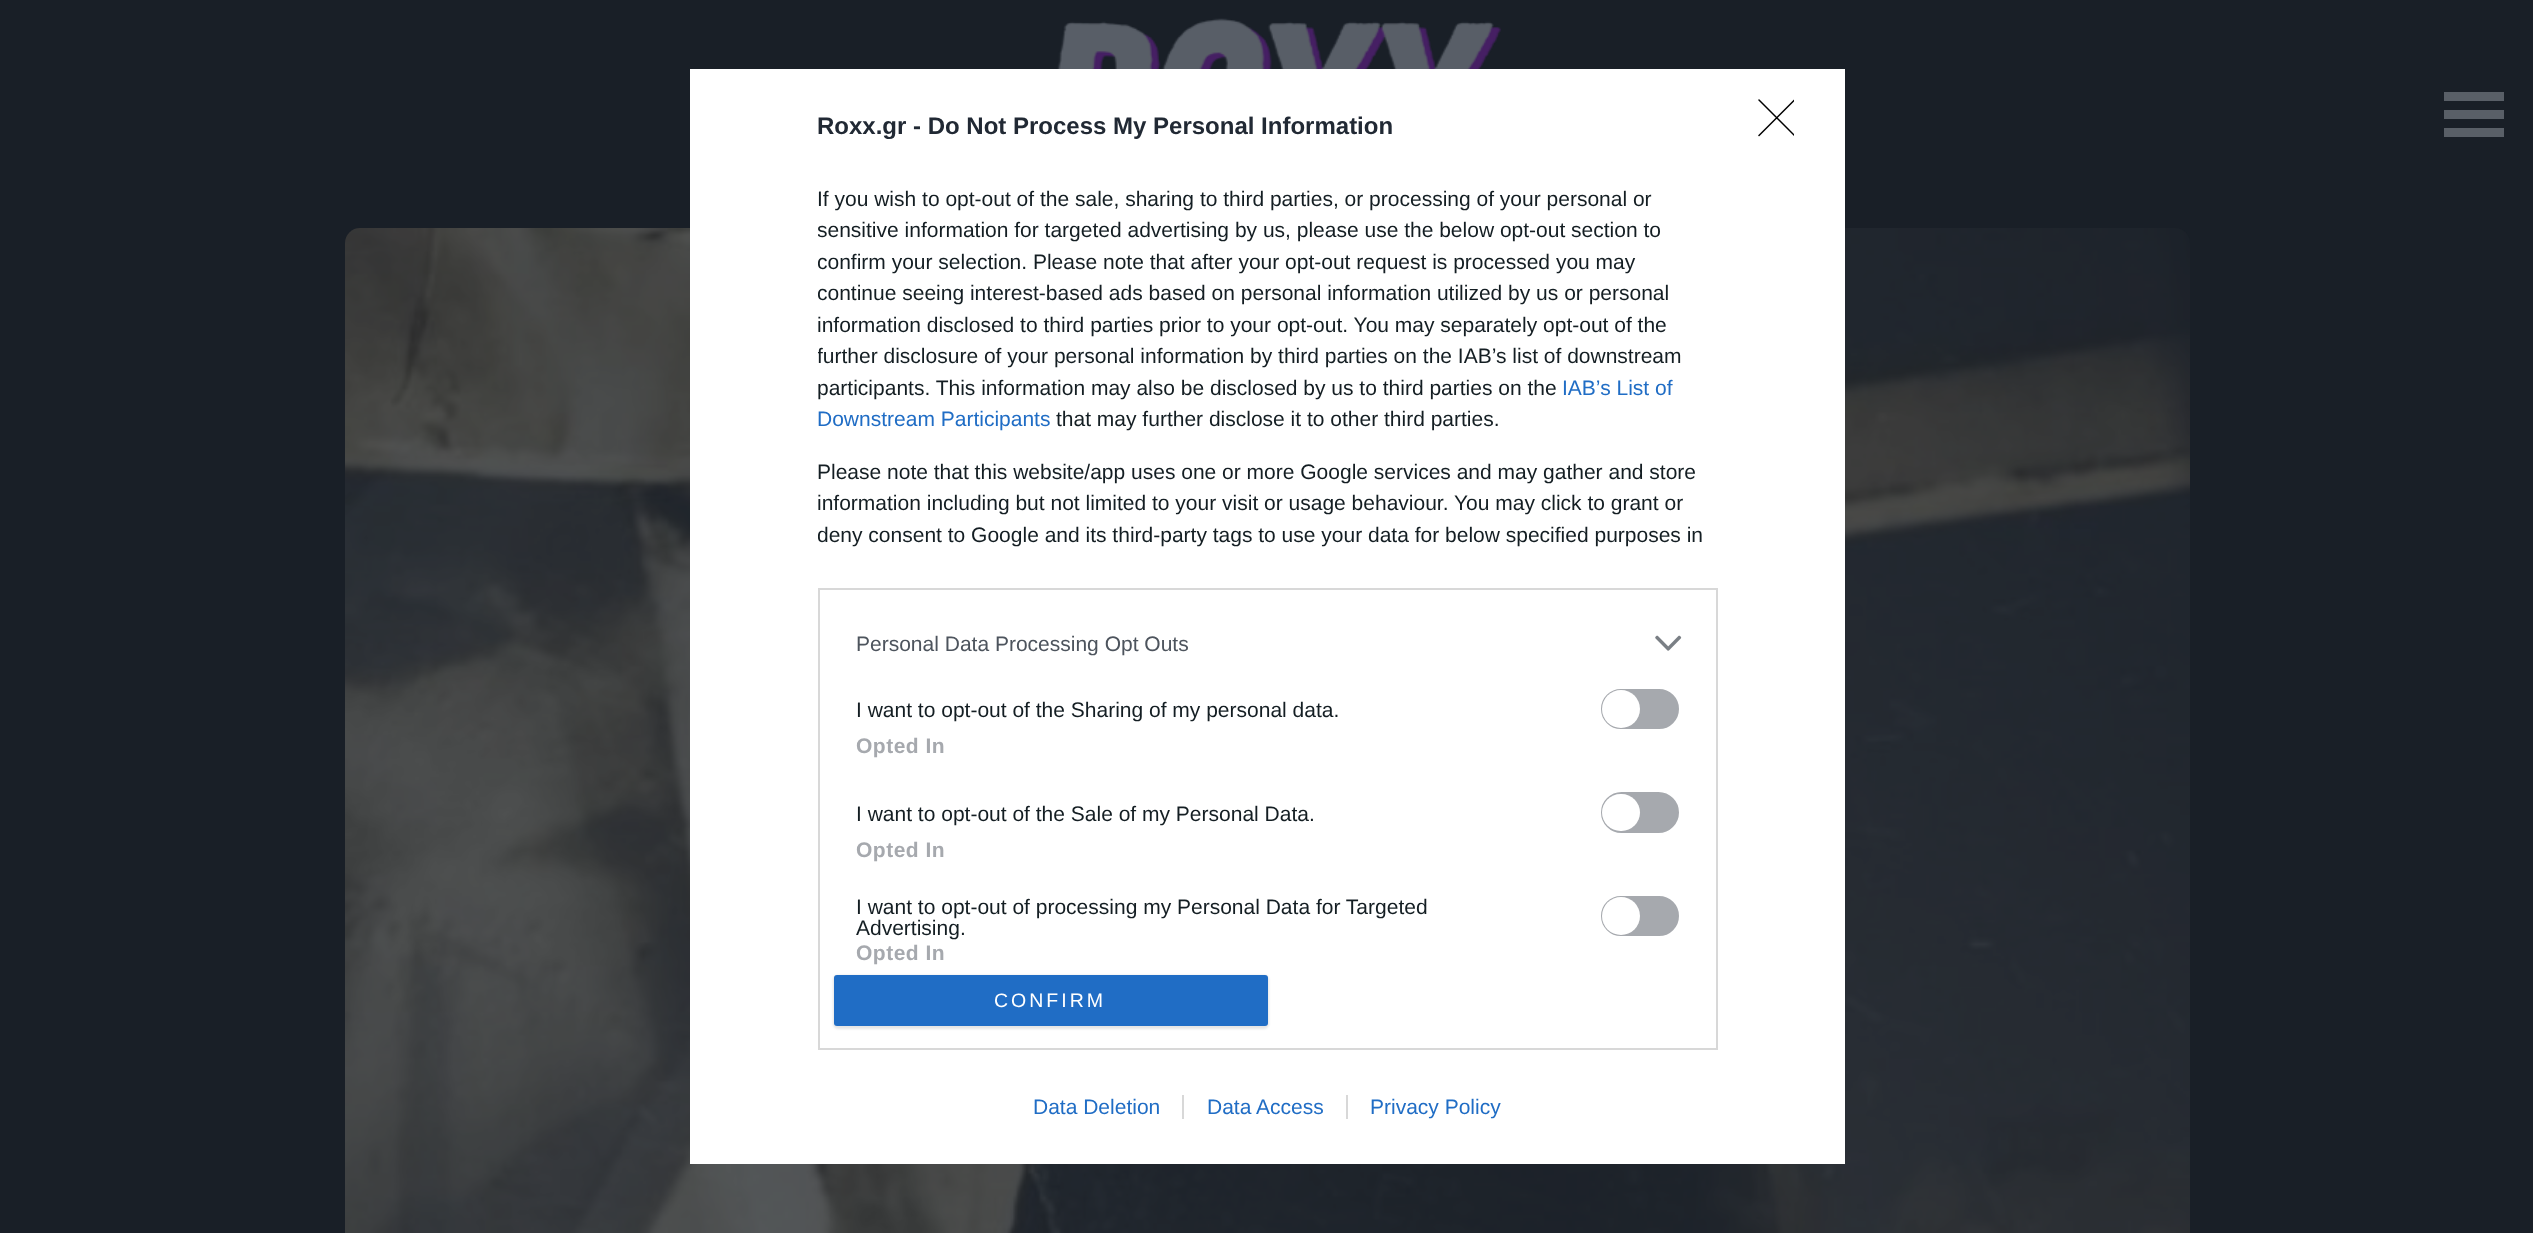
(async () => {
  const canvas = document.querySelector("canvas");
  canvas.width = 2533;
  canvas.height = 1233;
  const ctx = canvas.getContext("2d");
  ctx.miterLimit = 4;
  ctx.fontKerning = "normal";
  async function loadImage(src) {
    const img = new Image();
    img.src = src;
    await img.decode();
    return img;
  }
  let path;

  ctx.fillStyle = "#191f27";
  ctx.fillRect(0, 0, 2533, 1233);
  ctx.drawImage(await loadImage("img/1.png"), 1057, 18, 444, 51);
  for (const [x, y, w, h, color] of [
    [2444, 92, 60, 9, "#595f67"],
    [2444, 110, 60, 9, "#595f67"],
    [2444, 128, 60, 9, "#595f67"],
  ]) {
    ctx.fillStyle = color;
    ctx.fillRect(x, y, w, h);
  }
  ctx.drawImage(await loadImage("img/3.png"), 345, 228, 1845, 1005);
  ctx.fillStyle = "#ffffff";
  ctx.fillRect(690, 69, 1155, 1095);
  ctx.strokeStyle = "#d8d8d8";
  ctx.lineWidth = 2;
  ctx.strokeRect(819, 589, 898, 460);
  ctx.drawImage(await loadImage("img/2.png"), 1655, 635, 27, 16);
  ctx.fillStyle = "#a6a9ae";
  ctx.beginPath();
  ctx.roundRect(1602, 690, 76, 38, 19);
  ctx.fill();
  ctx.strokeStyle = "#a6a9ae";
  ctx.stroke();
  ctx.fillStyle = "#ffffff";
  ctx.beginPath();
  ctx.arc(1621, 709, 19, 0, Math.PI * 2);
  ctx.fill();
  ctx.fillStyle = "#a6a9ae";
  ctx.beginPath();
  ctx.roundRect(1602, 793, 76, 39, 19.5);
  ctx.fill();
  ctx.stroke();
  ctx.fillStyle = "#ffffff";
  ctx.beginPath();
  ctx.roundRect(1602, 794, 38, 37, 18.5);
  ctx.fill();
  ctx.fillStyle = "#a6a9ae";
  ctx.beginPath();
  ctx.roundRect(1602, 897, 76, 38, 19);
  ctx.fill();
  ctx.stroke();
  ctx.fillStyle = "#ffffff";
  ctx.beginPath();
  ctx.arc(1621, 916, 19, 0, Math.PI * 2);
  ctx.fill();
  ctx.fillStyle = "rgba(0, 0, 0, 0.1)";
  ctx.filter = "blur(1px)";
  ctx.beginPath();
  ctx.roundRect(833, 975, 436, 54, 5);
  ctx.fill();
  ctx.filter = "none";
  ctx.fillStyle = "#206dc5";
  ctx.beginPath();
  ctx.roundRect(834, 975, 434, 51, 3);
  ctx.fill();
  ctx.save();
  ctx.beginPath();
  ctx.rect(1758, 99, 36, 38);
  ctx.clip();
  path = new Path2D("M1759 100L1794.5 135.5M1794.5 100L1759 135.5");
  ctx.strokeStyle = "#000000";
  ctx.lineWidth = 1.5;
  ctx.lineCap = "round";
  ctx.lineJoin = "round";
  ctx.stroke(path);
  ctx.restore();
  ctx.fillStyle = "#d8d8d8";
  ctx.fillRect(1182, 1095, 2, 24);
  ctx.fillRect(1346, 1095, 2, 24);
  ctx.font = "bold 24px Liberation Sans";
  ctx.fillStyle = "#212934";
  ctx.fillText("Roxx.gr - Do Not Process My Personal Information", 817, 134);
  ctx.font = "21px Liberation Sans";
  ctx.fillStyle = "#141e23";
  ctx.fillText("If you wish to opt-out of the sale, sharing to third parties, or processing of your personal or", 817, 206);
  ctx.save();
  ctx.beginPath();
  ctx.rect(818, 161, 900, 405);
  ctx.clip();
  for (const [text, x, y] of [
    ["sensitive information for targeted advertising by us, please use the below opt-out section to", 817, 237],
    ["confirm your selection. Please note that after your opt-out request is processed you may", 817, 269],
    ["continue seeing interest-based ads based on personal information utilized by us or personal", 817, 300],
  ]) {
    ctx.fillText(text, x, y);
  }
  ctx.restore();
  ctx.fillText("information disclosed to third parties prior to your opt-out. You may separately opt-out of the", 817, 332);
  ctx.save();
  ctx.beginPath();
  ctx.rect(818, 161, 900, 405);
  ctx.clip();
  ctx.fillText("further disclosure of your personal information by third parties on the IAB’s list of downstream", 817, 363);
  ctx.restore();
  ctx.fillText("participants. This information may also be disclosed by us to third parties on the", 817, 395);
  ctx.fillStyle = "#206dc5";
  ctx.fillText("IAB’s List of", 1562, 395);
  ctx.fillText("Downstream Participants", 817, 426);
  ctx.fillStyle = "#141e23";
  for (const [text, x, y] of [
    ["that may further disclose it to other third parties.", 1056, 426],
    ["Please note that this website/app uses one or more Google services and may gather and store", 817, 479],
    ["information including but not limited to your visit or usage behaviour. You may click to grant or", 817, 510],
  ]) {
    ctx.fillText(text, x, y);
  }
  ctx.save();
  ctx.beginPath();
  ctx.rect(818, 161, 900, 405);
  ctx.clip();
  ctx.fillText("deny consent to Google and its third-party tags to use your data for below specified purposes in", 817, 542);
  ctx.restore();
  ctx.fillStyle = "#4d545d";
  ctx.fillText("Personal Data Processing Opt Outs", 856, 651);
  ctx.fillStyle = "#141e23";
  ctx.fillText("I want to opt-out of the Sharing of my personal data.", 856, 717);
  ctx.letterSpacing = "0.5px";
  ctx.font = "bold 21px Liberation Sans";
  ctx.fillStyle = "#a6a9ae";
  ctx.fillText("Opted In", 856, 753);
  ctx.letterSpacing = "0px";
  ctx.font = "21px Liberation Sans";
  ctx.fillStyle = "#141e23";
  ctx.fillText("I want to opt-out of the Sale of my Personal Data.", 856, 821);
  ctx.letterSpacing = "0.5px";
  ctx.font = "bold 21px Liberation Sans";
  ctx.fillStyle = "#a6a9ae";
  ctx.fillText("Opted In", 856, 857);
  ctx.letterSpacing = "0px";
  ctx.font = "21px Liberation Sans";
  ctx.fillStyle = "#141e23";
  ctx.fillText("I want to opt-out of processing my Personal Data for Targeted", 856, 914);
  ctx.fillText("Advertising.", 856, 935);
  ctx.letterSpacing = "0.5px";
  ctx.font = "bold 21px Liberation Sans";
  ctx.fillStyle = "#a6a9ae";
  ctx.fillText("Opted In", 856, 960);
  ctx.letterSpacing = "3px";
  ctx.font = "19.5px Liberation Sans";
  ctx.fillStyle = "#ffffff";
  ctx.fillText("CONFIRM", 994, 1007);
  ctx.letterSpacing = "0px";
  ctx.font = "21px Liberation Sans";
  ctx.fillStyle = "#206dc5";
  for (const [text, x, y] of [
    ["Data Deletion", 1033, 1114],
    ["Data Access", 1207, 1114],
    ["Privacy Policy", 1370, 1114],
  ]) {
    ctx.fillText(text, x, y);
  }
})();
